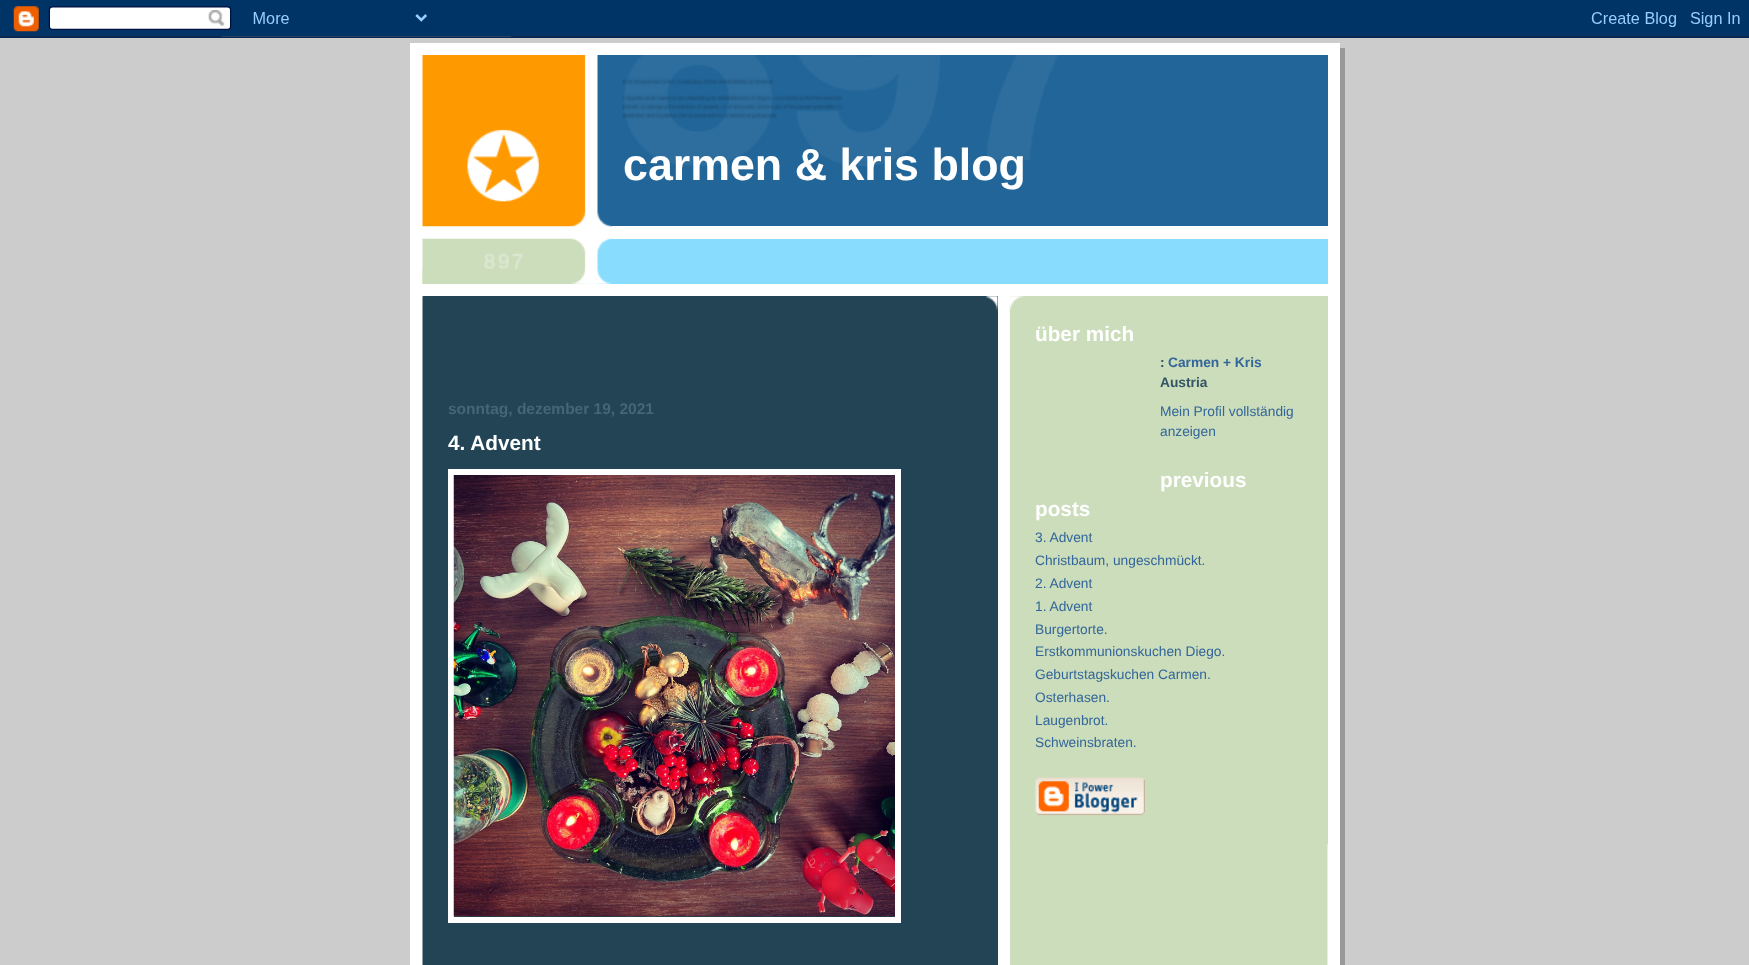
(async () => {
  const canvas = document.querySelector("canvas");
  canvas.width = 1749;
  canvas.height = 965;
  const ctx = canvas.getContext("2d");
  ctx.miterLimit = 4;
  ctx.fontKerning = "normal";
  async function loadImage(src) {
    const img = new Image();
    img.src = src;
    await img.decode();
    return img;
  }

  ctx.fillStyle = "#cccccc";
  ctx.fillRect(0, 0, 1749, 965);
  ctx.drawImage(await loadImage("img/1.png"), 0, 0, 1749, 38);
  for (const [x, y, w, h, color] of [
    [1340, 48, 5, 917, "#999999"],
    [410, 43, 930, 922, "#ffffff"],
    [597, 55, 731, 171, "#226699"],
  ]) {
    ctx.fillStyle = color;
    ctx.fillRect(x, y, w, h);
  }
  ctx.drawImage(await loadImage("img/2.png"), 422, 55, 191, 172);
  ctx.drawImage(await loadImage("img/3.png"), 622, 55, 436, 111);
  ctx.fillStyle = "#88ddff";
  ctx.fillRect(423, 239, 905, 45);
  ctx.drawImage(await loadImage("img/4.png"), 422, 238, 191, 46);
  ctx.drawImage(await loadImage("img/5.png"), 422, 269, 190, 15);
  ctx.drawImage(await loadImage("img/6.png"), 484, 253, 39, 16);
  ctx.drawImage(await loadImage("img/7.png"), 422, 296, 906, 669);
  ctx.fillStyle = "#224455";
  ctx.fillRect(423, 296, 575, 669);
  ctx.drawImage(await loadImage("img/8.png"), 986, 296, 12, 15);
  ctx.strokeStyle = "#ffffff";
  ctx.lineWidth = 6;
  ctx.strokeRect(451, 472, 447, 448);
  ctx.drawImage(await loadImage("img/9.png"), 453, 475, 442, 442);
  ctx.fillStyle = "#ccddbb";
  ctx.fillRect(1010, 296, 318, 548);
  ctx.drawImage(await loadImage("img/10.png"), 1010, 296, 14, 14);
  ctx.drawImage(await loadImage("img/11.png"), 1035, 777, 110, 39);
  ctx.font = "bold 44.75px Liberation Sans";
  ctx.fillStyle = "#ffffff";
  ctx.fillText("carmen & kris blog", 623, 180);
  ctx.font = "bold 15.5px Liberation Sans";
  ctx.fillStyle = "#446677";
  ctx.fillText("sonntag, dezember 19, 2021", 448, 414);
  ctx.font = "bold 20.75px Liberation Sans";
  ctx.fillStyle = "#ffffff";
  ctx.fillText("4. Advent", 448, 450);
  ctx.fillText("über mich", 1035, 341);
  ctx.font = "bold 13.75px Liberation Sans";
  ctx.fillStyle = "#335566";
  ctx.fillText(":", 1160, 367);
  ctx.fillStyle = "#336699";
  ctx.fillText("Carmen + Kris", 1168, 367);
  ctx.fillStyle = "#335566";
  ctx.fillText("Austria", 1160, 387);
  ctx.font = "13.75px Liberation Sans";
  ctx.fillStyle = "#336699";
  ctx.fillText("Mein Profil vollständig", 1160, 416);
  ctx.fillText("anzeigen", 1160, 436);
  ctx.font = "bold 20.75px Liberation Sans";
  ctx.fillStyle = "#ffffff";
  ctx.fillText("previous", 1160, 487);
  ctx.fillText("posts", 1035, 516);
  ctx.font = "13.75px Liberation Sans";
  ctx.fillStyle = "#336699";
  for (const [text, x, y] of [
    ["3. Advent", 1035, 542],
    ["Christbaum, ungeschmückt.", 1035, 565],
    ["2. Advent", 1035, 588],
    ["1. Advent", 1035, 611],
    ["Burgertorte.", 1035, 634],
    ["Erstkommunionskuchen Diego.", 1035, 656],
    ["Geburtstagskuchen Carmen.", 1035, 679],
    ["Osterhasen.", 1035, 702],
    ["Laugenbrot.", 1035, 725],
    ["Schweinsbraten.", 1035, 747],
  ]) {
    ctx.fillText(text, x, y);
  }
})();
